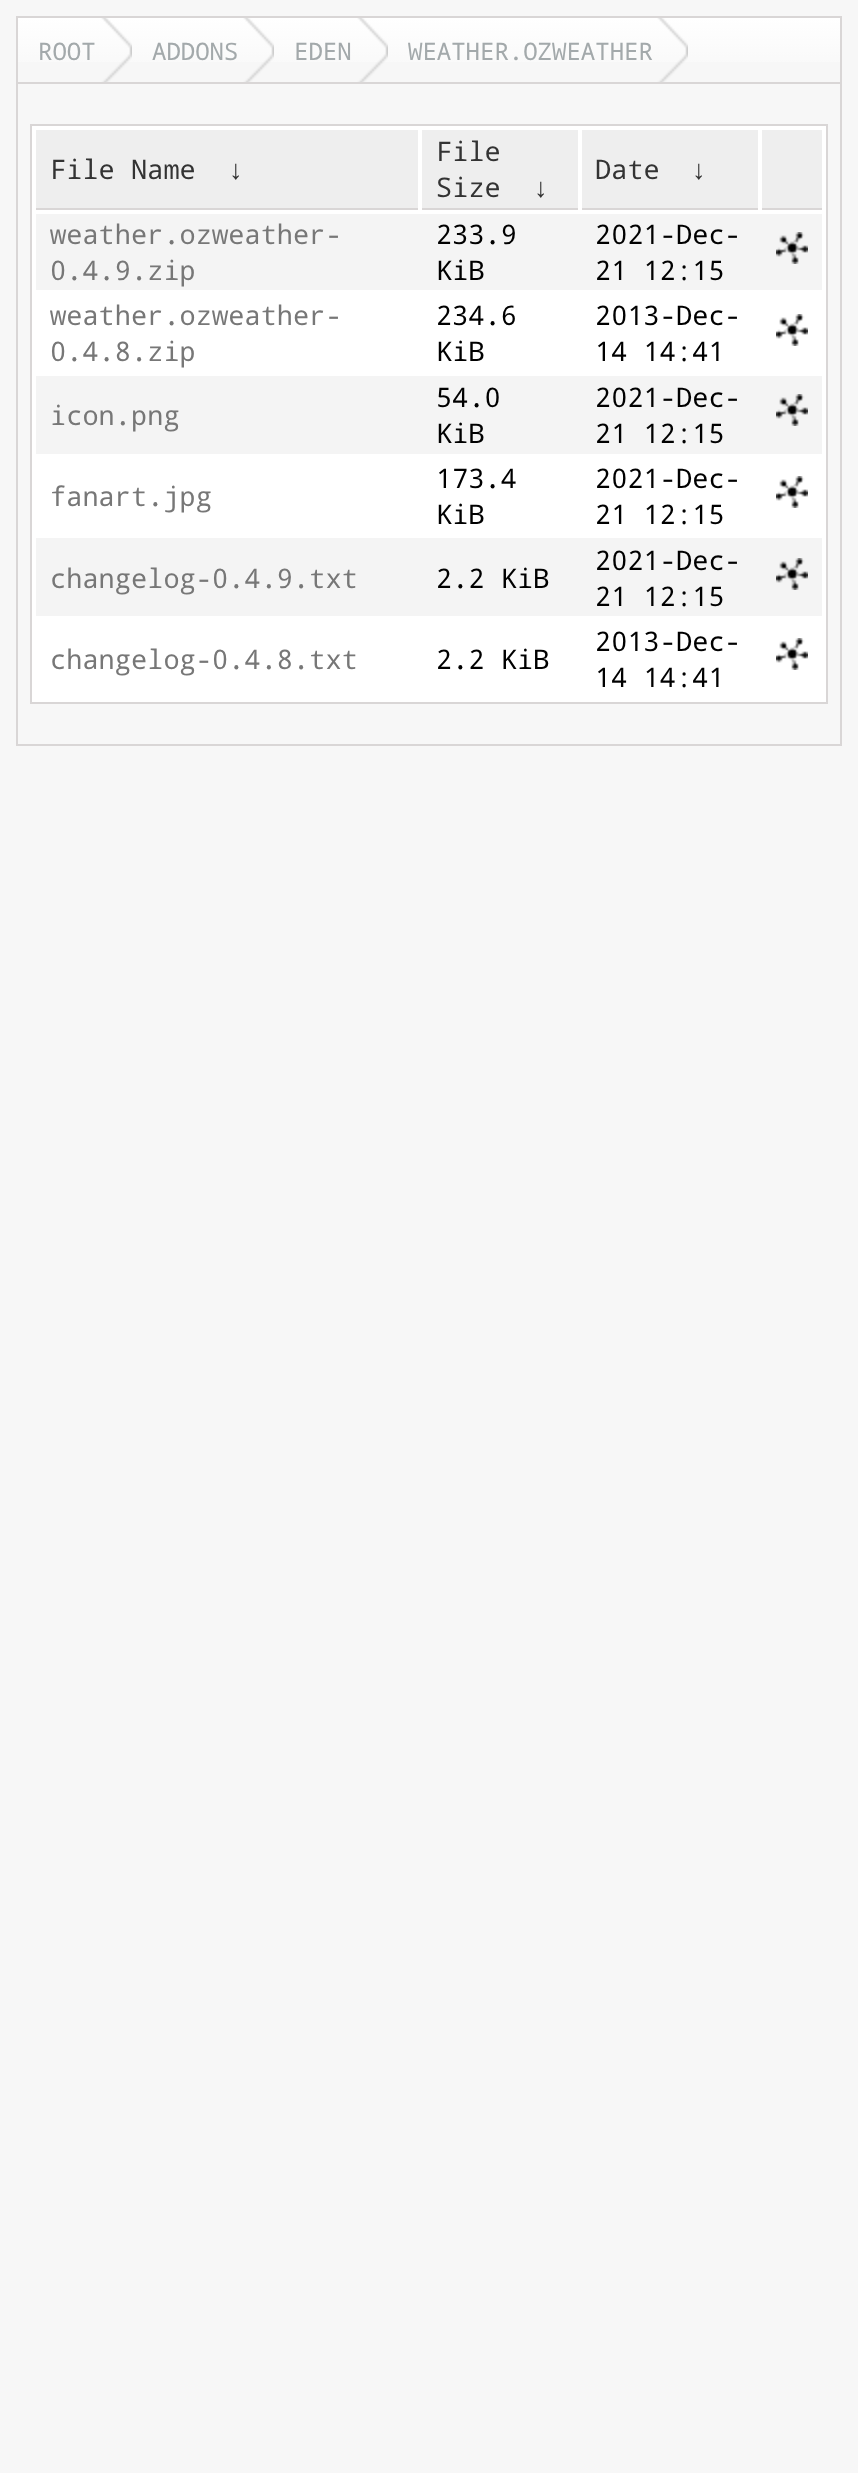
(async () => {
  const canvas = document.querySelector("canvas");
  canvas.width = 858;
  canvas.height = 2473;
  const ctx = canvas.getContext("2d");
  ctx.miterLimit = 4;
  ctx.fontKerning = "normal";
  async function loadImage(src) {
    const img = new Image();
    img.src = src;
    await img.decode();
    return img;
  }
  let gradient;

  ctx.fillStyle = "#f7f7f7";
  ctx.fillRect(0, 0, 858, 2473);
  ctx.strokeStyle = "#d9d6d6";
  ctx.lineWidth = 2;
  ctx.strokeRect(17, 17, 824, 728);
  gradient = ctx.createLinearGradient(429, 18, 429, 82);
  gradient.addColorStop(0, "#ffffff");
  gradient.addColorStop(1, "#f7f7f7");
  ctx.fillStyle = gradient;
  ctx.fillRect(18, 18, 822, 44);
  ctx.fillStyle = "#d9d6d6";
  ctx.fillRect(18, 82, 822, 2);
  ctx.drawImage(await loadImage("img/1.png"), 101, 18, 31, 64);
  ctx.drawImage(await loadImage("img/1.png"), 243, 18, 31, 64);
  ctx.drawImage(await loadImage("img/1.png"), 357, 18, 31, 64);
  ctx.drawImage(await loadImage("img/1.png"), 657, 18, 31, 64);
  ctx.fillStyle = "#ffffff";
  ctx.beginPath();
  ctx.rect(31, 125, 796, 578);
  ctx.fill();
  ctx.stroke();
  for (const [x, y, w, h, color] of [
    [36, 130, 382, 78, "#eeeeee"],
    [36, 208, 382, 2, "#d9d6d6"],
    [422, 130, 156, 78, "#eeeeee"],
    [422, 208, 156, 2, "#d9d6d6"],
    [582, 130, 176, 78, "#eeeeee"],
    [582, 208, 176, 2, "#d9d6d6"],
    [762, 130, 60, 78, "#eeeeee"],
    [762, 208, 60, 2, "#d9d6d6"],
    [36, 214, 786, 76, "#f4f4f4"],
  ]) {
    ctx.fillStyle = color;
    ctx.fillRect(x, y, w, h);
  }
  ctx.drawImage(await loadImage("img/2.png"), 776, 232, 32, 32);
  ctx.drawImage(await loadImage("img/3.png"), 776, 314, 32, 32);
  ctx.fillRect(36, 376, 786, 78);
  ctx.drawImage(await loadImage("img/2.png"), 776, 394, 32, 32);
  ctx.drawImage(await loadImage("img/3.png"), 776, 476, 32, 32);
  ctx.fillRect(36, 538, 786, 78);
  ctx.drawImage(await loadImage("img/2.png"), 776, 558, 32, 32);
  ctx.drawImage(await loadImage("img/3.png"), 776, 638, 32, 32);
  ctx.font = "24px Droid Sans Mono";
  ctx.fillStyle = "#a3a9ab";
  for (const [text, x, y] of [
    ["ROOT", 38, 60],
    ["ADDONS", 152, 60],
    ["EDEN", 294, 60],
    ["WEATHER.OZWEATHER", 408, 60],
  ]) {
    ctx.fillText(text, x, y);
  }
  ctx.font = "27px Droid Sans Mono";
  ctx.fillStyle = "#333333";
  ctx.fillText("File Name", 50, 179);
  ctx.font = "27px Liberation Serif";
  ctx.fillText("↓", 229, 179);
  ctx.font = "27px Droid Sans Mono";
  ctx.fillText("File", 436, 161);
  ctx.fillText("Size", 436, 197);
  ctx.font = "27px Liberation Serif";
  ctx.fillText("↓", 534, 197);
  ctx.font = "27px Droid Sans Mono";
  ctx.fillText("Date", 595, 179);
  ctx.font = "27px Liberation Serif";
  ctx.fillText("↓", 692, 179);
  ctx.font = "27px Droid Sans Mono";
  ctx.fillStyle = "#777777";
  ctx.fillText("weather.ozweather-", 50, 244);
  ctx.fillText("0.4.9.zip", 50, 280);
  ctx.fillStyle = "#000000";
  for (const [text, x, y] of [
    ["233.9", 436, 244],
    ["KiB", 436, 280],
    ["2021-Dec-", 595, 244],
    ["21 12:15", 595, 280],
  ]) {
    ctx.fillText(text, x, y);
  }
  ctx.fillStyle = "#777777";
  ctx.fillText("weather.ozweather-", 50, 325);
  ctx.fillText("0.4.8.zip", 50, 361);
  ctx.fillStyle = "#000000";
  for (const [text, x, y] of [
    ["234.6", 436, 325],
    ["KiB", 436, 361],
    ["2013-Dec-", 595, 325],
    ["14 14:41", 595, 361],
  ]) {
    ctx.fillText(text, x, y);
  }
  ctx.fillStyle = "#777777";
  ctx.fillText("icon.png", 50, 425);
  ctx.fillStyle = "#000000";
  for (const [text, x, y] of [
    ["54.0", 436, 407],
    ["KiB", 436, 443],
    ["2021-Dec-", 595, 407],
    ["21 12:15", 595, 443],
  ]) {
    ctx.fillText(text, x, y);
  }
  ctx.fillStyle = "#777777";
  ctx.fillText("fanart.jpg", 50, 506);
  ctx.fillStyle = "#000000";
  for (const [text, x, y] of [
    ["173.4", 436, 488],
    ["KiB", 436, 524],
    ["2021-Dec-", 595, 488],
    ["21 12:15", 595, 524],
  ]) {
    ctx.fillText(text, x, y);
  }
  ctx.fillStyle = "#777777";
  ctx.fillText("changelog-0.4.9.txt", 50, 588);
  ctx.fillStyle = "#000000";
  for (const [text, x, y] of [
    ["2.2 KiB", 436, 588],
    ["2021-Dec-", 595, 570],
    ["21 12:15", 595, 606],
  ]) {
    ctx.fillText(text, x, y);
  }
  ctx.fillStyle = "#777777";
  ctx.fillText("changelog-0.4.8.txt", 50, 669);
  ctx.fillStyle = "#000000";
  for (const [text, x, y] of [
    ["2.2 KiB", 436, 669],
    ["2013-Dec-", 595, 651],
    ["14 14:41", 595, 687],
  ]) {
    ctx.fillText(text, x, y);
  }
})();
